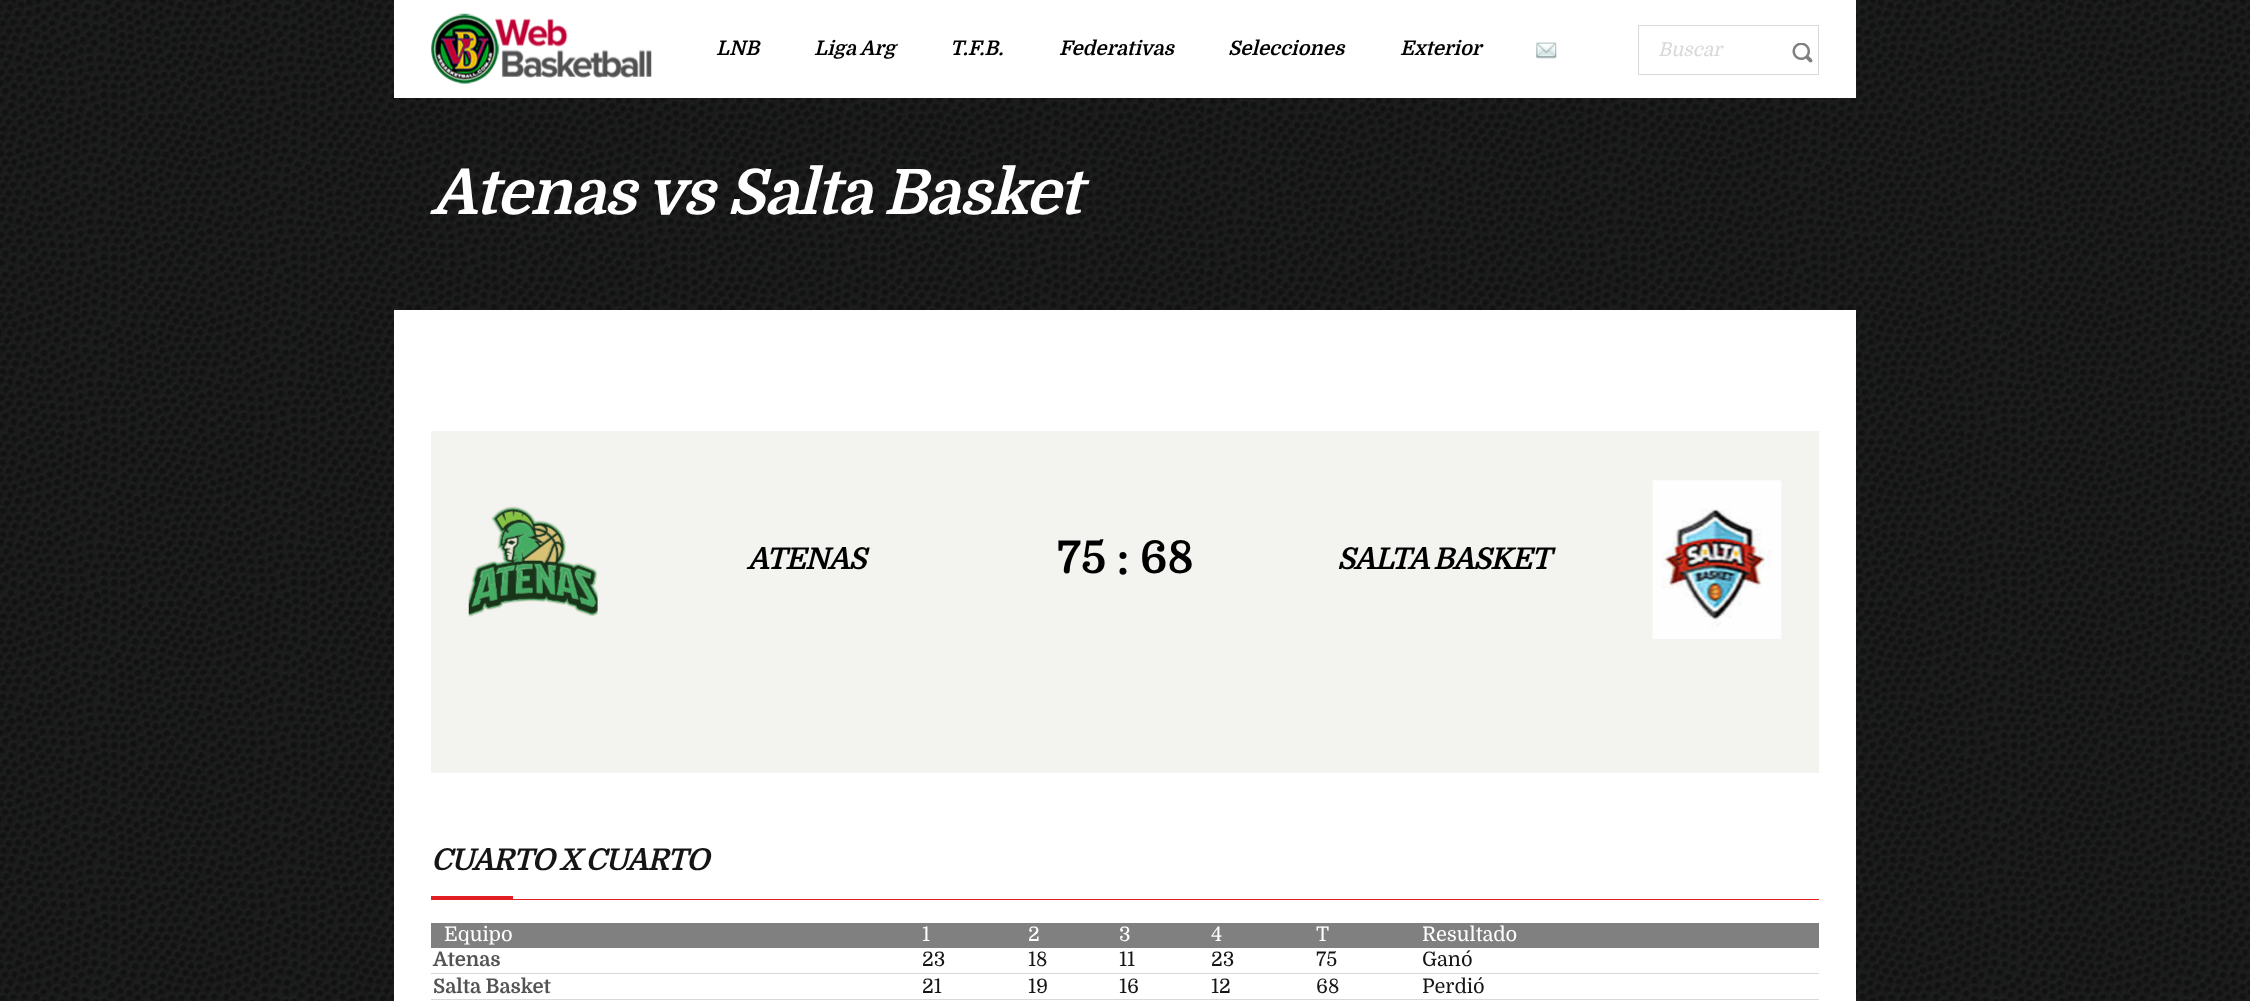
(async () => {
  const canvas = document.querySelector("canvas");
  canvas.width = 2250;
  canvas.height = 1001;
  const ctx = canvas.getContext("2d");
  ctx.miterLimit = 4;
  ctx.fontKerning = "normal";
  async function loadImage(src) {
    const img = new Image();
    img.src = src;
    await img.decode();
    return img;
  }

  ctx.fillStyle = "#ffffff";
  ctx.fillRect(0, 0, 2250, 1001);
  ctx.drawImage(await loadImage("img/1.png"), 0, 0, 2250, 1001);
  ctx.fillRect(394, 0, 1462, 98);
  ctx.drawImage(await loadImage("img/2.png"), 431, 13, 221, 71);
  ctx.drawImage(await loadImage("img/3.png"), 1536, 42, 21, 17);
  ctx.strokeStyle = "#d9d9d9";
  ctx.strokeRect(1638.5, 25.5, 180, 49);
  ctx.drawImage(await loadImage("img/4.png"), 1792, 43, 21, 20);
  ctx.fillRect(394, 310, 1462, 691);
  ctx.fillStyle = "#f3f3ef";
  ctx.fillRect(431, 431, 1388, 342);
  ctx.drawImage(await loadImage("img/5.png"), 468, 506, 130, 111);
  ctx.drawImage(await loadImage("img/6.png"), 1652, 480, 130, 159);
  for (const [x, y, w, h, color] of [
    [431, 899, 1388, 1, "#e21e22"],
    [431, 896, 82, 3, "#e21e22"],
    [431, 923, 1388, 25, "#808080"],
    [431, 973, 1388, 1, "#d8d8d8"],
    [431, 999, 1388, 1, "#d8d8d8"],
  ]) {
    ctx.fillStyle = color;
    ctx.fillRect(x, y, w, h);
  }
  ctx.font = "italic bold 20px Domine";
  ctx.fillStyle = "#000000";
  for (const [text, x, y] of [
    ["LNB", 716, 55],
    ["Liga Arg", 814, 55],
    ["T.F.B.", 950, 55],
    ["Federativas", 1059, 55],
    ["Selecciones", 1228, 55],
    ["Exterior", 1400, 55],
  ]) {
    ctx.fillText(text, x, y);
  }
  ctx.font = "italic 19px Domine";
  ctx.fillStyle = "#d9d9d9";
  ctx.fillText("Buscar", 1658, 56);
  ctx.letterSpacing = "-1.25px";
  ctx.font = "italic bold 62.5px Domine";
  ctx.fillStyle = "#ffffff";
  ctx.fillText("Atenas vs Salta Basket", 431, 214);
  ctx.font = "italic bold 30px Domine";
  ctx.fillStyle = "#000000";
  ctx.fillText("ATENAS", 747, 569);
  ctx.letterSpacing = "0px";
  ctx.font = "bold 45px Domine";
  ctx.fillText("75 : 68", 1057, 573);
  ctx.letterSpacing = "-1.25px";
  ctx.font = "italic bold 30px Domine";
  ctx.fillText("SALTA BASKET", 1337, 569);
  ctx.fillStyle = "#151515";
  ctx.fillText("CUARTO X CUARTO", 431, 870);
  ctx.letterSpacing = "0px";
  ctx.font = "20px Domine";
  ctx.fillStyle = "#ffffff";
  for (const [text, x, y] of [
    ["Equipo", 444, 941],
    ["1", 922, 941],
    ["2", 1028, 941],
    ["3", 1119, 941],
    ["4", 1211, 941],
    ["T", 1316, 941],
    ["Resultado", 1422, 941],
  ]) {
    ctx.fillText(text, x, y);
  }
  ctx.font = "bold 20px Domine";
  ctx.fillStyle = "#535353";
  ctx.fillText("Atenas", 433, 966);
  ctx.font = "20px Domine";
  ctx.fillStyle = "#151515";
  for (const [text, x, y] of [
    ["23", 922, 966],
    ["18", 1028, 966],
    ["11", 1119, 966],
    ["23", 1211, 966],
    ["75", 1316, 966],
    ["Ganó", 1422, 966],
  ]) {
    ctx.fillText(text, x, y);
  }
  ctx.font = "bold 20px Domine";
  ctx.fillStyle = "#535353";
  ctx.fillText("Salta Basket", 433, 993);
  ctx.font = "20px Domine";
  ctx.fillStyle = "#151515";
  for (const [text, x, y] of [
    ["21", 922, 993],
    ["19", 1028, 993],
    ["16", 1119, 993],
    ["12", 1211, 993],
    ["68", 1316, 993],
    ["Perdió", 1422, 993],
  ]) {
    ctx.fillText(text, x, y);
  }
})();
